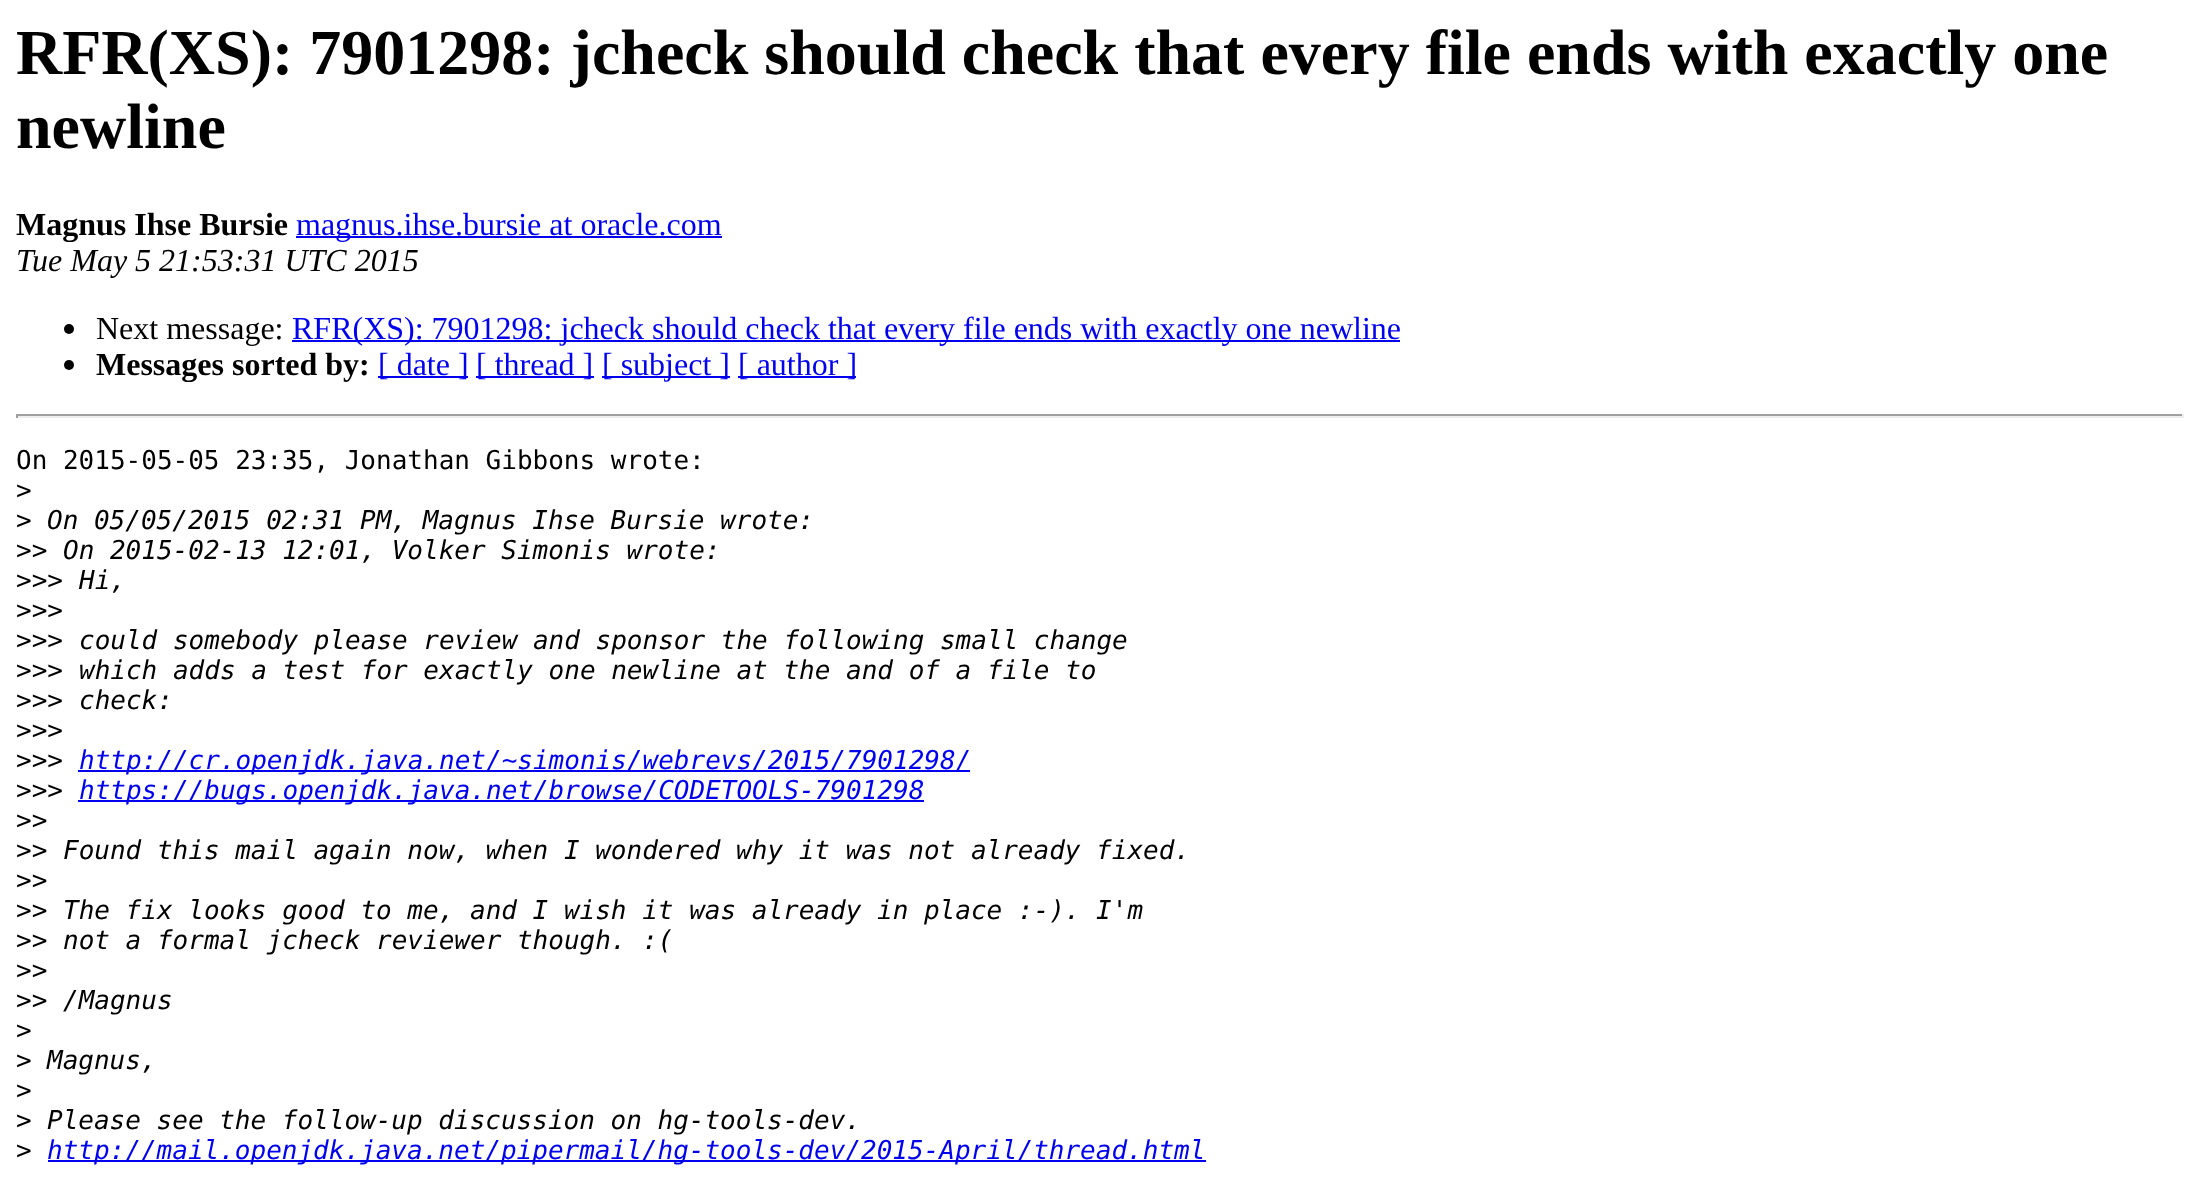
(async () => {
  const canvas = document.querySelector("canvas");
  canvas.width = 2200;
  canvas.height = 1177;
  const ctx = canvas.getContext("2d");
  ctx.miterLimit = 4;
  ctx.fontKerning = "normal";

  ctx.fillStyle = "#ffffff";
  ctx.fillRect(0, 0, 2200, 1177);
  ctx.fillStyle = "#0000ee";
  ctx.fillRect(296, 236, 426, 2);
  ctx.fillStyle = "#000000";
  ctx.beginPath();
  ctx.arc(69, 329, 5, 0, Math.PI * 2);
  ctx.fill();
  ctx.fillStyle = "#0000ee";
  ctx.fillRect(292, 340, 1108, 2);
  ctx.fillStyle = "#000000";
  ctx.beginPath();
  ctx.arc(69, 365, 5, 0, Math.PI * 2);
  ctx.fill();
  for (const [x, y, w, h, color] of [
    [378, 376, 90, 2, "#0000ee"],
    [476, 376, 118, 2, "#0000ee"],
    [602, 376, 128, 2, "#0000ee"],
    [738, 376, 118, 2, "#0000ee"],
    [16, 414, 2168, 2, "#9f9f9f"],
    [2182, 414, 2, 4, "#eeeeee"],
    [16, 416, 2168, 2, "#eeeeee"],
    [16, 414, 2, 4, "#9f9f9f"],
    [78, 770, 892, 2, "#0000ee"],
    [78, 800, 846, 2, "#0000ee"],
    [48, 1160, 1158, 2, "#0000ee"],
  ]) {
    ctx.fillStyle = color;
    ctx.fillRect(x, y, w, h);
  }
  ctx.font = "bold 64px Liberation Serif";
  ctx.fillStyle = "#000000";
  ctx.fillText("RFR(XS): 7901298: jcheck should check that every file ends with exactly one", 16, 74);
  ctx.fillText("newline", 16, 148);
  ctx.font = "bold 32px Liberation Serif";
  ctx.fillText("Magnus Ihse Bursie", 16, 235);
  ctx.font = "32px Liberation Serif";
  ctx.fillStyle = "#0000ee";
  ctx.fillText("magnus.ihse.bursie at oracle.com", 296, 235);
  ctx.font = "italic 32px Liberation Serif";
  ctx.fillStyle = "#000000";
  ctx.fillText("Tue May 5 21:53:31 UTC 2015", 16, 271);
  ctx.font = "32px Liberation Serif";
  ctx.fillText("Next message:", 96, 339);
  ctx.fillStyle = "#0000ee";
  ctx.fillText("RFR(XS): 7901298: jcheck should check that every file ends with exactly one newline", 292, 339);
  ctx.font = "bold 32px Liberation Serif";
  ctx.fillStyle = "#000000";
  ctx.fillText("Messages sorted by:", 96, 375);
  ctx.font = "32px Liberation Serif";
  ctx.fillStyle = "#0000ee";
  for (const [text, x, y] of [
    ["[ date ]", 378, 375],
    ["[ thread ]", 476, 375],
    ["[ subject ]", 602, 375],
    ["[ author ]", 738, 375],
  ]) {
    ctx.fillText(text, x, y);
  }
  ctx.font = "26px DejaVu Sans Mono";
  ctx.fillStyle = "#000000";
  for (const [text, x, y] of [
    ["On 2015-05-05 23:35, Jonathan Gibbons wrote:", 16, 469],
    [">", 16, 499],
    [">", 16, 529],
  ]) {
    ctx.fillText(text, x, y);
  }
  ctx.font = "italic 26px DejaVu Sans Mono";
  ctx.fillText("On 05/05/2015 02:31 PM, Magnus Ihse Bursie wrote:", 47, 529);
  ctx.font = "26px DejaVu Sans Mono";
  ctx.fillText(">>", 16, 559);
  ctx.font = "italic 26px DejaVu Sans Mono";
  ctx.fillText("On 2015-02-13 12:01, Volker Simonis wrote:", 63, 559);
  ctx.font = "26px DejaVu Sans Mono";
  ctx.fillText(">>>", 16, 589);
  ctx.font = "italic 26px DejaVu Sans Mono";
  ctx.fillText("Hi,", 79, 589);
  ctx.font = "26px DejaVu Sans Mono";
  ctx.fillText(">>>", 16, 619);
  ctx.fillText(">>>", 16, 649);
  ctx.font = "italic 26px DejaVu Sans Mono";
  ctx.fillText("could somebody please review and sponsor the following small change", 79, 649);
  ctx.font = "26px DejaVu Sans Mono";
  ctx.fillText(">>>", 16, 679);
  ctx.font = "italic 26px DejaVu Sans Mono";
  ctx.fillText("which adds a test for exactly one newline at the and of a file to", 79, 679);
  ctx.font = "26px DejaVu Sans Mono";
  ctx.fillText(">>>", 16, 709);
  ctx.font = "italic 26px DejaVu Sans Mono";
  ctx.fillText("check:", 79, 709);
  ctx.font = "26px DejaVu Sans Mono";
  ctx.fillText(">>>", 16, 739);
  ctx.fillText(">>>", 16, 769);
  ctx.font = "italic 26px DejaVu Sans Mono";
  ctx.fillStyle = "#0000ee";
  ctx.fillText("http://cr.openjdk.java.net/~simonis/webrevs/2015/7901298/", 79, 769);
  ctx.font = "26px DejaVu Sans Mono";
  ctx.fillStyle = "#000000";
  ctx.fillText(">>>", 16, 799);
  ctx.font = "italic 26px DejaVu Sans Mono";
  ctx.fillStyle = "#0000ee";
  ctx.fillText("https://bugs.openjdk.java.net/browse/CODETOOLS-7901298", 79, 799);
  ctx.font = "26px DejaVu Sans Mono";
  ctx.fillStyle = "#000000";
  ctx.fillText(">>", 16, 829);
  ctx.fillText(">>", 16, 859);
  ctx.font = "italic 26px DejaVu Sans Mono";
  ctx.fillText("Found this mail again now, when I wondered why it was not already fixed.", 63, 859);
  ctx.font = "26px DejaVu Sans Mono";
  ctx.fillText(">>", 16, 889);
  ctx.fillText(">>", 16, 919);
  ctx.font = "italic 26px DejaVu Sans Mono";
  ctx.fillText("The fix looks good to me, and I wish it was already in place :-). I'm", 63, 919);
  ctx.font = "26px DejaVu Sans Mono";
  ctx.fillText(">>", 16, 949);
  ctx.font = "italic 26px DejaVu Sans Mono";
  ctx.fillText("not a formal jcheck reviewer though. :(", 63, 949);
  ctx.font = "26px DejaVu Sans Mono";
  ctx.fillText(">>", 16, 979);
  ctx.fillText(">>", 16, 1009);
  ctx.font = "italic 26px DejaVu Sans Mono";
  ctx.fillText("/Magnus", 63, 1009);
  ctx.font = "26px DejaVu Sans Mono";
  ctx.fillText(">", 16, 1039);
  ctx.fillText(">", 16, 1069);
  ctx.font = "italic 26px DejaVu Sans Mono";
  ctx.fillText("Magnus,", 47, 1069);
  ctx.font = "26px DejaVu Sans Mono";
  ctx.fillText(">", 16, 1099);
  ctx.fillText(">", 16, 1129);
  ctx.font = "italic 26px DejaVu Sans Mono";
  ctx.fillText("Please see the follow-up discussion on hg-tools-dev.", 47, 1129);
  ctx.font = "26px DejaVu Sans Mono";
  ctx.fillText(">", 16, 1159);
  ctx.font = "italic 26px DejaVu Sans Mono";
  ctx.fillStyle = "#0000ee";
  ctx.fillText("http://mail.openjdk.java.net/pipermail/hg-tools-dev/2015-April/thread.html", 47, 1159);
})();
